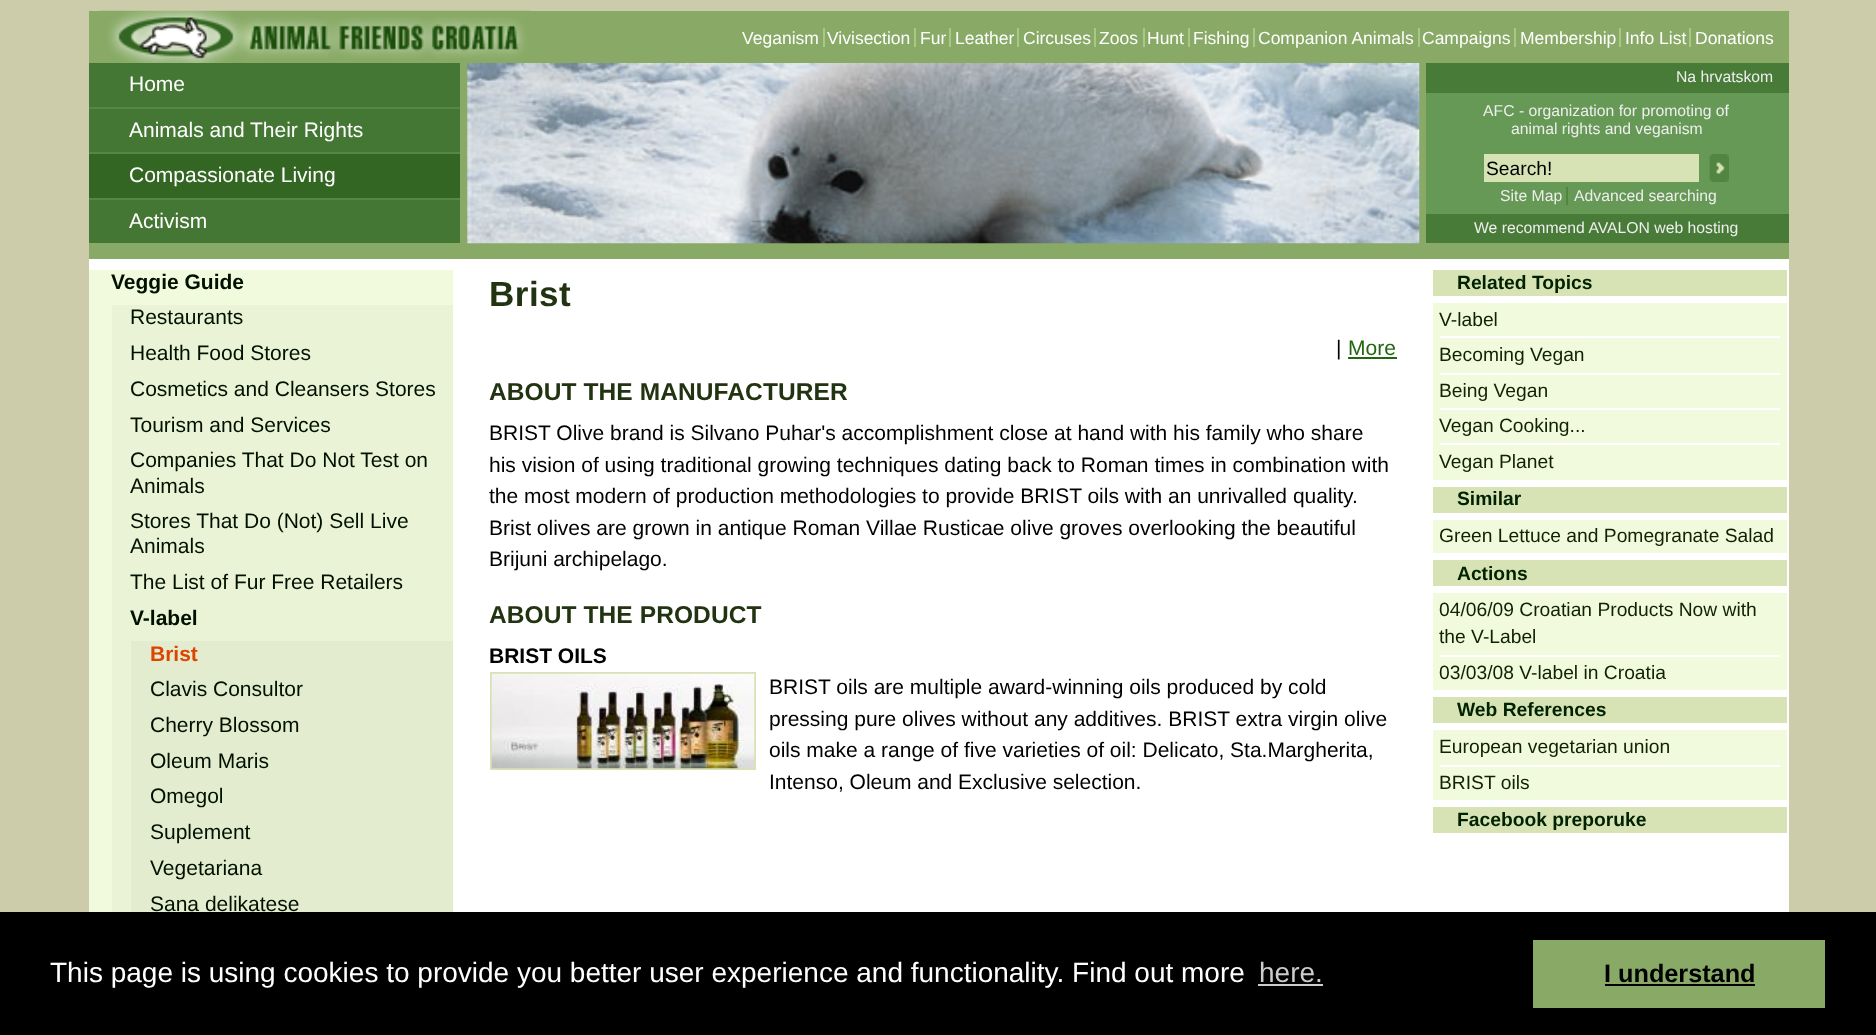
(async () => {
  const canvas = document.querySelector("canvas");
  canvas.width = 1876;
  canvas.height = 1035;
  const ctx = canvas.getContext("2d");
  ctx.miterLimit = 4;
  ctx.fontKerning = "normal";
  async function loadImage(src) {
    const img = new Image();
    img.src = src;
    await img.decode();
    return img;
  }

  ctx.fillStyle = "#ccccaa";
  ctx.fillRect(0, 0, 1876, 1035);
  ctx.fillStyle = "#ffffff";
  ctx.fillRect(89, 259, 1700, 653);
  ctx.fillStyle = "#88aa66";
  ctx.fillRect(89, 11, 1700, 248);
  ctx.drawImage(await loadImage("img/1.png"), 99, 10, 432, 53);
  for (const [x, y, w, h, color] of [
    [823, 28, 2, 19, "#a8c888"],
    [914, 28, 2, 19, "#a8c888"],
    [949, 28, 2, 19, "#a8c888"],
    [1017, 28, 2, 19, "#a8c888"],
    [1094, 28, 2, 19, "#a8c888"],
    [1143, 28, 2, 19, "#a8c888"],
    [1188, 28, 2, 19, "#a8c888"],
    [1253, 28, 2, 19, "#a8c888"],
    [1418, 28, 2, 19, "#a8c888"],
    [1514, 28, 2, 19, "#a8c888"],
    [1619, 28, 2, 19, "#a8c888"],
    [1689, 28, 2, 19, "#a8c888"],
  ]) {
    ctx.fillStyle = color;
    ctx.fillRect(x, y, w, h);
  }
  ctx.drawImage(await loadImage("img/2.png"), 467, 63, 953, 181);
  for (const [x, y, w, h, color] of [
    [89, 63, 371, 180, "#447733"],
    [89, 107, 371, 2, "#558844"],
    [89, 152, 371, 2, "#558844"],
    [89, 154, 371, 44, "#336622"],
    [89, 198, 371, 2, "#558844"],
    [1426, 93, 363, 121, "#669955"],
    [1426, 63, 363, 30, "#487b37"],
    [1484, 154, 215, 28, "#d7e3b5"],
  ]) {
    ctx.fillStyle = color;
    ctx.fillRect(x, y, w, h);
  }
  ctx.drawImage(await loadImage("img/3.png"), 1709, 154, 20, 28);
  for (const [x, y, w, h, color] of [
    [1566, 187, 2, 18, "#528541"],
    [1426, 214, 363, 29, "#487b37"],
    [89, 270, 364, 642, "#f2fade"],
    [112, 305, 341, 607, "#ebf3d7"],
    [131, 641, 322, 271, "#e4ecd0"],
    [1348, 357, 49, 2, "#226611"],
  ]) {
    ctx.fillStyle = color;
    ctx.fillRect(x, y, w, h);
  }
  ctx.strokeStyle = "#d7e3b5";
  ctx.lineWidth = 2;
  ctx.strokeRect(491, 673, 264, 96);
  ctx.drawImage(await loadImage("img/4.png"), 491, 673, 264, 96);
  for (const [x, y, w, h, color] of [
    [1433, 270, 354, 26, "#d7e3b5"],
    [1433, 303, 354, 177, "#f2fade"],
    [1440, 336, 340, 2, "#ffffff"],
    [1440, 373, 340, 2, "#ffffff"],
    [1440, 408, 340, 2, "#ffffff"],
    [1440, 443, 340, 2, "#ffffff"],
    [1433, 487, 354, 26, "#d7e3b5"],
    [1433, 520, 354, 33, "#f2fade"],
    [1433, 560, 354, 26, "#d7e3b5"],
    [1433, 593, 354, 97, "#f2fade"],
    [1440, 655, 340, 2, "#ffffff"],
    [1433, 697, 354, 26, "#d7e3b5"],
    [1433, 730, 354, 70, "#f2fade"],
    [1440, 765, 340, 2, "#ffffff"],
    [1433, 807, 354, 26, "#d7e3b5"],
    [0, 912, 1876, 123, "#000000"],
    [1258, 984, 65, 2, "#cccccc"],
    [1533, 940, 292, 68, "#88aa66"],
    [1605, 984, 150, 2, "#000000"],
  ]) {
    ctx.fillStyle = color;
    ctx.fillRect(x, y, w, h);
  }
  ctx.font = "17.5px Liberation Sans";
  ctx.fillStyle = "#ffffff";
  for (const [text, x, y] of [
    ["Veganism", 742, 44],
    ["Vivisection", 827, 44],
    ["Fur", 920, 44],
    ["Leather", 955, 44],
    ["Circuses", 1023, 44],
    ["Zoos", 1099, 44],
    ["Hunt", 1147, 44],
    ["Fishing", 1193, 44],
    ["Companion Animals", 1258, 44],
    ["Campaigns", 1422, 44],
    ["Membership", 1520, 44],
    ["Info List", 1625, 44],
    ["Donations", 1695, 44],
  ]) {
    ctx.fillText(text, x, y);
  }
  ctx.font = "21px Liberation Sans";
  for (const [text, x, y] of [
    ["Home", 129, 91],
    ["Animals and Their Rights", 129, 137],
    ["Compassionate Living", 129, 182],
    ["Activism", 129, 228],
  ]) {
    ctx.fillText(text, x, y);
  }
  ctx.font = "15.75px Liberation Sans";
  ctx.fillStyle = "#eeeeee";
  for (const [text, x, y] of [
    ["Na hrvatskom", 1676, 82],
    ["AFC - organization for promoting of", 1483, 116],
    ["animal rights and veganism", 1511, 134],
  ]) {
    ctx.fillText(text, x, y);
  }
  ctx.font = "19.25px Liberation Sans";
  ctx.fillStyle = "#000000";
  ctx.fillText("Search!", 1486, 175);
  ctx.font = "15.75px Liberation Sans";
  ctx.fillStyle = "#eeeeee";
  for (const [text, x, y] of [
    ["Site Map", 1500, 201],
    ["Advanced searching", 1574, 201],
    ["We recommend AVALON web hosting", 1474, 233],
  ]) {
    ctx.fillText(text, x, y);
  }
  ctx.font = "bold 21px Liberation Sans";
  ctx.fillStyle = "#001100";
  ctx.fillText("Veggie Guide", 111, 289);
  ctx.font = "21px Liberation Sans";
  for (const [text, x, y] of [
    ["Restaurants", 130, 324],
    ["Health Food Stores", 130, 360],
    ["Cosmetics and Cleansers Stores", 130, 396],
    ["Tourism and Services", 130, 432],
    ["Companies That Do Not Test on", 130, 467],
    ["Animals", 130, 493],
    ["Stores That Do (Not) Sell Live", 130, 528],
    ["Animals", 130, 553],
    ["The List of Fur Free Retailers", 130, 589],
  ]) {
    ctx.fillText(text, x, y);
  }
  ctx.font = "bold 21px Liberation Sans";
  ctx.fillText("V-label", 130, 625);
  ctx.fillStyle = "#dd4400";
  ctx.fillText("Brist", 150, 661);
  ctx.font = "21px Liberation Sans";
  ctx.fillStyle = "#001100";
  for (const [text, x, y] of [
    ["Clavis Consultor", 150, 696],
    ["Cherry Blossom", 150, 732],
    ["Oleum Maris", 150, 768],
    ["Omegol", 150, 803],
    ["Suplement", 150, 839],
    ["Vegetariana", 150, 875],
    ["Sana delikatese", 150, 911],
  ]) {
    ctx.fillText(text, x, y);
  }
  ctx.letterSpacing = "0.5px";
  ctx.font = "bold 35px Liberation Sans";
  ctx.fillStyle = "#223311";
  ctx.fillText("Brist", 489, 306);
  ctx.letterSpacing = "0px";
  ctx.font = "21px Liberation Sans";
  ctx.fillStyle = "#000000";
  ctx.fillText("|", 1336, 355);
  ctx.fillStyle = "#226611";
  ctx.fillText("More", 1348, 355);
  ctx.letterSpacing = "0.1px";
  ctx.font = "bold 24.5px Liberation Sans";
  ctx.fillStyle = "#223311";
  ctx.fillText("ABOUT THE MANUFACTURER", 489, 400);
  ctx.letterSpacing = "0px";
  ctx.font = "21px Liberation Sans";
  ctx.fillStyle = "#000000";
  for (const [text, x, y] of [
    ["BRIST Olive brand is Silvano Puhar's accomplishment close at hand with his family who share", 489, 440],
    ["his vision of using traditional growing techniques dating back to Roman times in combination with", 489, 472],
    ["the most modern of production methodologies to provide BRIST oils with an unrivalled quality.", 489, 503],
    ["Brist olives are grown in antique Roman Villae Rusticae olive groves overlooking the beautiful", 489, 535],
    ["Brijuni archipelago.", 489, 566],
  ]) {
    ctx.fillText(text, x, y);
  }
  ctx.letterSpacing = "0.1px";
  ctx.font = "bold 24.5px Liberation Sans";
  ctx.fillStyle = "#223311";
  ctx.fillText("ABOUT THE PRODUCT", 489, 623);
  ctx.letterSpacing = "0px";
  ctx.font = "bold 21px Liberation Sans";
  ctx.fillStyle = "#000000";
  ctx.fillText("BRIST OILS", 489, 663);
  ctx.font = "21px Liberation Sans";
  for (const [text, x, y] of [
    ["BRIST oils are multiple award-winning oils produced by cold", 769, 694],
    ["pressing pure olives without any additives. BRIST extra virgin olive", 769, 726],
    ["oils make a range of five varieties of oil: Delicato, Sta.Margherita,", 769, 757],
    ["Intenso, Oleum and Exclusive selection.", 769, 789],
  ]) {
    ctx.fillText(text, x, y);
  }
  ctx.font = "bold 19.25px Liberation Sans";
  ctx.fillStyle = "#002200";
  ctx.fillText("Related Topics", 1457, 289);
  ctx.font = "19.25px Liberation Sans";
  ctx.fillStyle = "#112200";
  for (const [text, x, y] of [
    ["V-label", 1439, 326],
    ["Becoming Vegan", 1439, 361],
    ["Being Vegan", 1439, 397],
    ["Vegan Cooking...", 1439, 432],
    ["Vegan Planet", 1439, 468],
  ]) {
    ctx.fillText(text, x, y);
  }
  ctx.font = "bold 19.25px Liberation Sans";
  ctx.fillStyle = "#002200";
  ctx.fillText("Similar", 1457, 505);
  ctx.font = "19.25px Liberation Sans";
  ctx.fillStyle = "#112200";
  ctx.fillText("Green Lettuce and Pomegranate Salad", 1439, 542);
  ctx.font = "bold 19.25px Liberation Sans";
  ctx.fillStyle = "#002200";
  ctx.fillText("Actions", 1457, 580);
  ctx.font = "19.25px Liberation Sans";
  ctx.fillStyle = "#112200";
  for (const [text, x, y] of [
    ["04/06/09 Croatian Products Now with", 1439, 616],
    ["the V-Label", 1439, 643],
    ["03/03/08 V-label in Croatia", 1439, 679],
  ]) {
    ctx.fillText(text, x, y);
  }
  ctx.font = "bold 19.25px Liberation Sans";
  ctx.fillStyle = "#002200";
  ctx.fillText("Web References", 1457, 716);
  ctx.font = "19.25px Liberation Sans";
  ctx.fillStyle = "#112200";
  ctx.fillText("European vegetarian union", 1439, 753);
  ctx.fillText("BRIST oils", 1439, 789);
  ctx.font = "bold 19.25px Liberation Sans";
  ctx.fillStyle = "#002200";
  ctx.fillText("Facebook preporuke", 1457, 826);
  ctx.font = "28px Liberation Sans";
  ctx.fillStyle = "#ffffff";
  ctx.fillText("This page is using cookies to provide you better user experience and functionality. Find out more", 50, 982);
  ctx.fillStyle = "#cccccc";
  ctx.fillText("here.", 1259, 982);
  ctx.font = "bold 25.25px Liberation Sans";
  ctx.fillStyle = "#000000";
  ctx.fillText("I understand", 1604, 982);
})();
